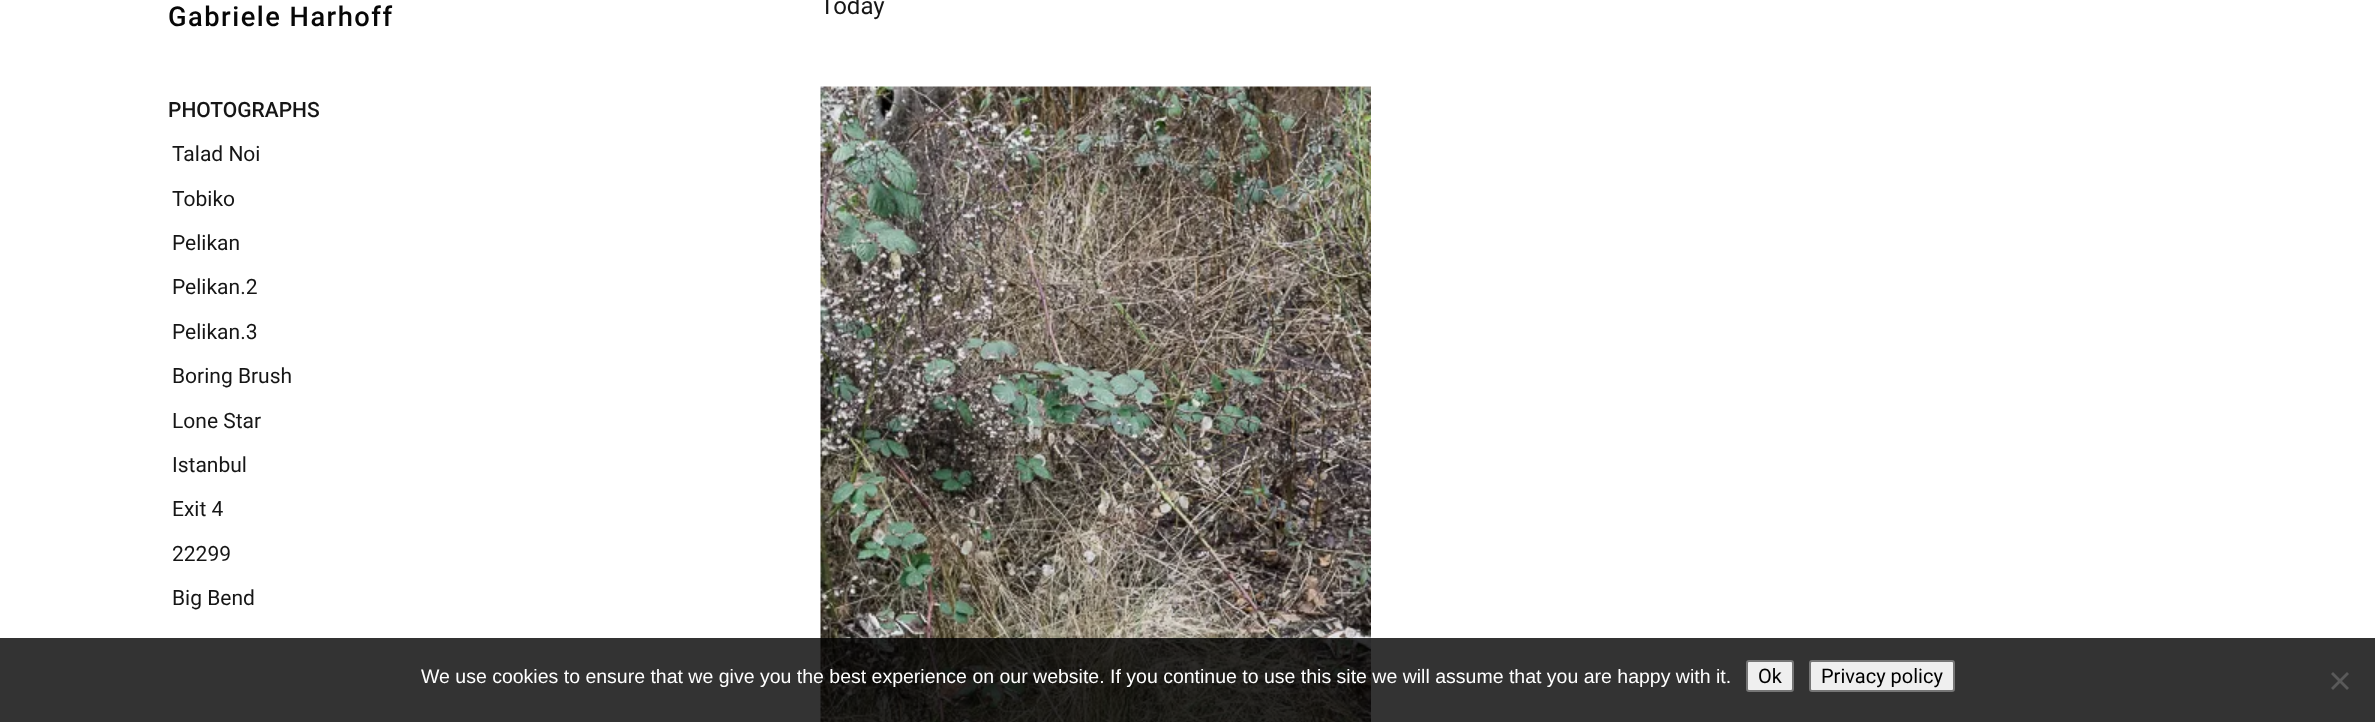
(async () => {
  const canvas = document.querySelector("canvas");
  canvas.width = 2375;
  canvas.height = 722;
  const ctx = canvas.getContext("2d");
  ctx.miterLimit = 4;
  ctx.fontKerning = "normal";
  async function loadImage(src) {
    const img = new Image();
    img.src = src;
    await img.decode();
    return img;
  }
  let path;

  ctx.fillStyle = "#ffffff";
  ctx.fillRect(0, 0, 2375, 722);
  ctx.drawImage(await loadImage("img/1.png"), 820, 86, 551, 636);
  ctx.fillStyle = "rgba(0, 0, 0, 0.8)";
  ctx.fillRect(0, 638, 2375, 84);
  ctx.fillStyle = "#efefef";
  ctx.beginPath();
  ctx.roundRect(1747, 661, 46, 30, 2);
  ctx.fill();
  ctx.strokeStyle = "#767676";
  ctx.lineWidth = 2;
  ctx.stroke();
  ctx.beginPath();
  ctx.roundRect(1810, 661, 144, 30, 2);
  ctx.fill();
  ctx.stroke();
  ctx.fillStyle = "#5a5a5a";
  path = new Path2D("M2347 672L2349 674L2333 690L2331 688Z");
  ctx.fill(path);
  path = new Path2D("M2331 674L2333 672L2349 688L2347 690Z");
  ctx.fill(path);
  ctx.letterSpacing = "1.5px";
  ctx.font = "500 27.25px Roboto";
  ctx.fillStyle = "#070707";
  ctx.fillText("Gabriele Harhoff", 168, 26);
  ctx.letterSpacing = "0px";
  ctx.font = "500 21px Roboto";
  ctx.fillStyle = "#161616";
  ctx.fillText("PHOTOGRAPHS", 168, 117);
  ctx.font = "21px Roboto";
  for (const [text, x, y] of [
    ["Talad Noi", 172, 161],
    ["Tobiko", 172, 206],
    ["Pelikan", 172, 250],
    ["Pelikan.2", 172, 294],
    ["Pelikan.3", 172, 339],
    ["Boring Brush", 172, 383],
    ["Lone Star", 172, 428],
    ["Istanbul", 172, 472],
    ["Exit 4", 172, 516],
    ["22299", 172, 561],
    ["Big Bend", 172, 605],
  ]) {
    ctx.fillText(text, x, y);
  }
  ctx.font = "24px Roboto";
  ctx.fillText("Today", 820, 14);
  ctx.font = "19.5px Liberation Sans";
  ctx.fillStyle = "#ffffff";
  ctx.fillText("We use cookies to ensure that we give you the best experience on our website. If you continue to use this site we will assume that you are happy with it.", 421, 683);
  ctx.font = "20px Roboto";
  ctx.fillStyle = "#000000";
  ctx.fillText("Ok", 1758, 683);
  ctx.fillText("Privacy policy", 1821, 683);
})();
